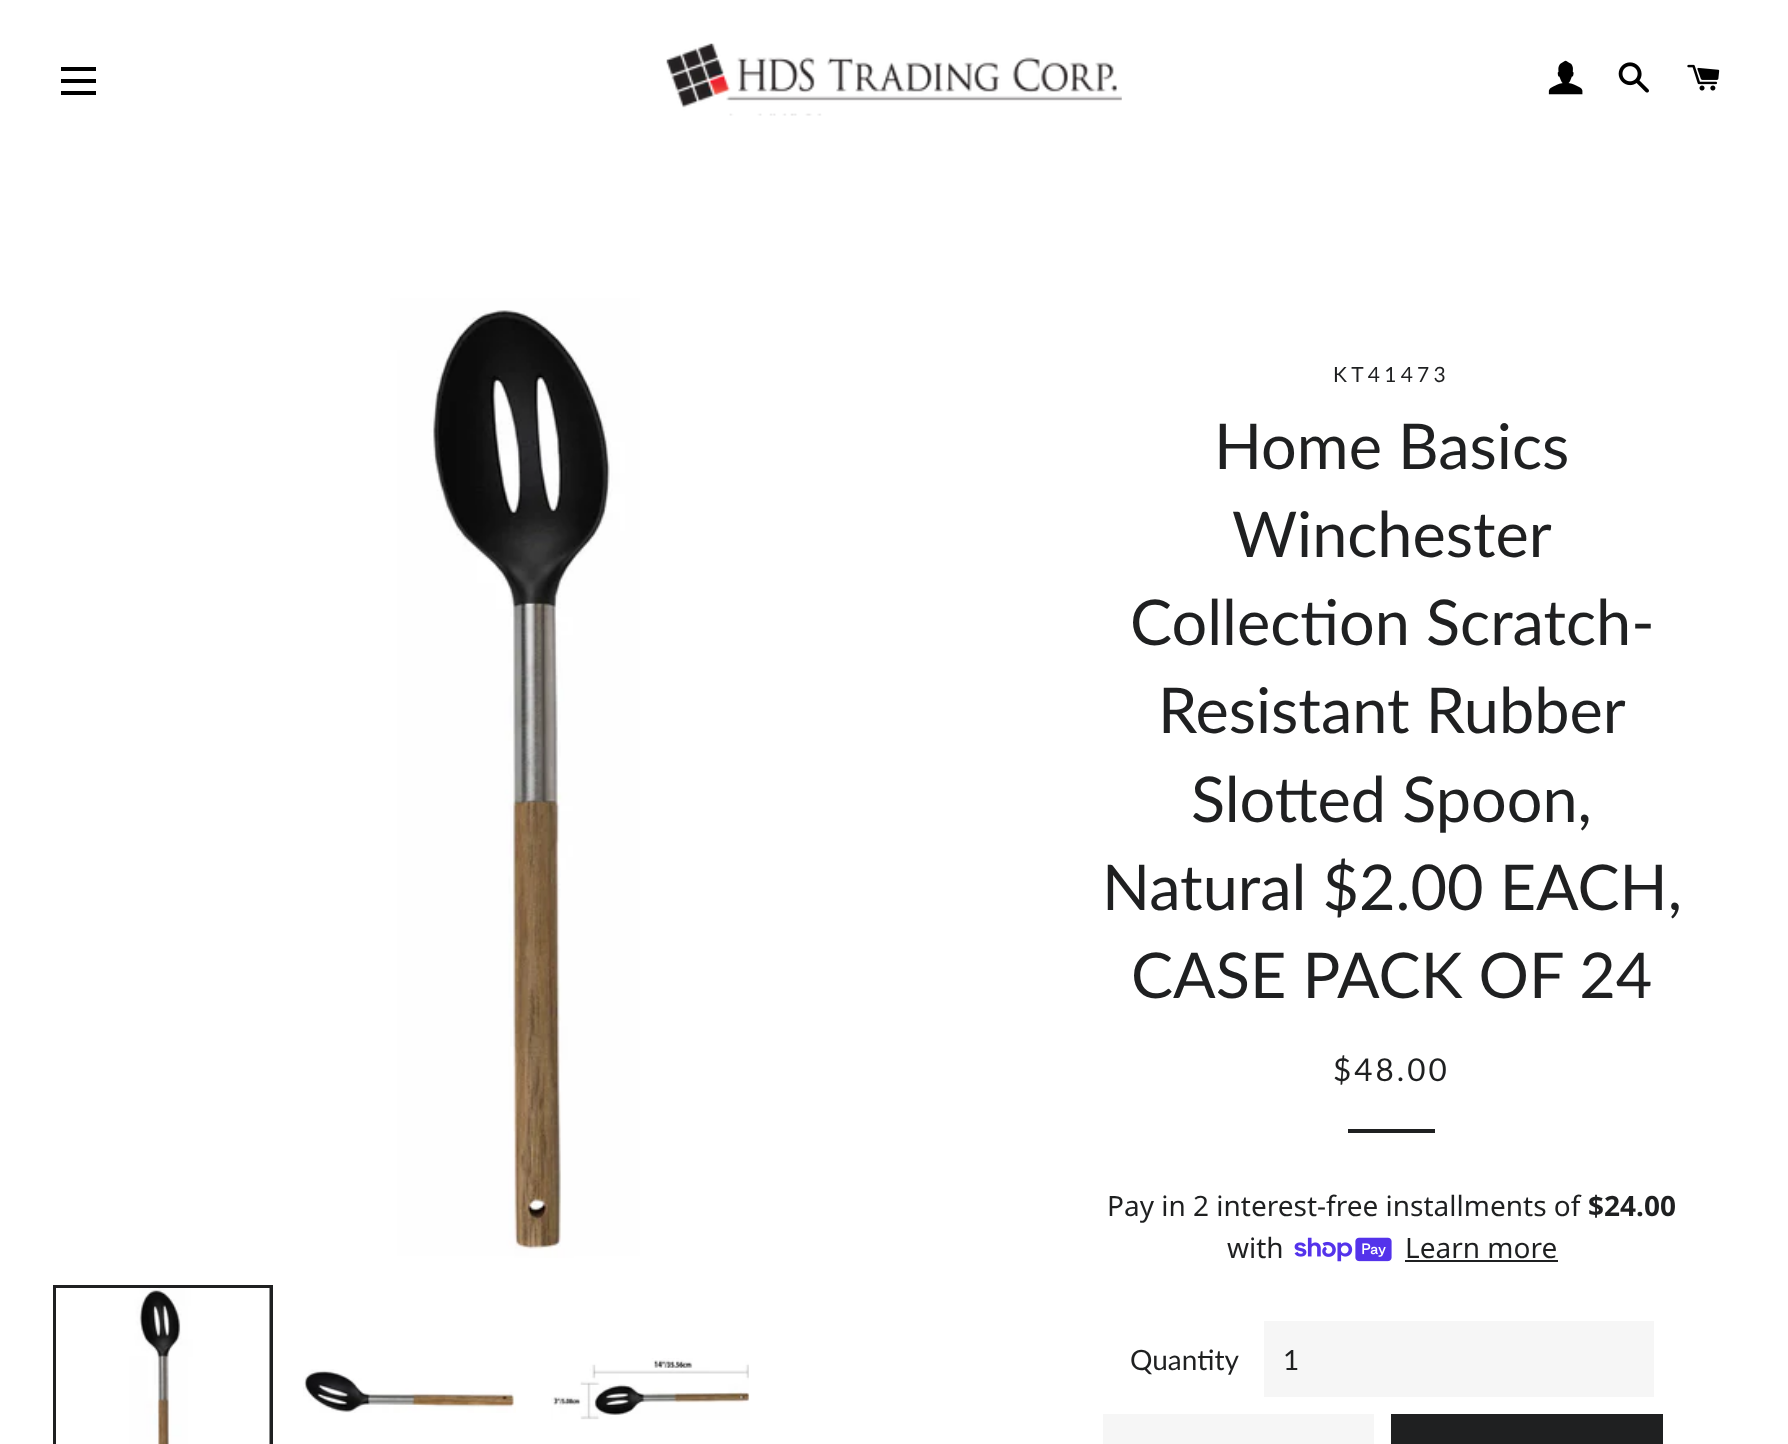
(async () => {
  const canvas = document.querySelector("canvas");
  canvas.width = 1788;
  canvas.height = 1444;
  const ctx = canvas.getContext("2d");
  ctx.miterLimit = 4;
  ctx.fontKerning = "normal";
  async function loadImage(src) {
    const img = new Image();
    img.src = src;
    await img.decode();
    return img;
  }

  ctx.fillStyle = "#ffffff";
  ctx.fillRect(0, 0, 1788, 1444);
  for (const [x, y, w, h, color] of [
    [61, 67, 35, 4, "#000000"],
    [61, 79, 35, 4, "#000000"],
    [61, 91, 35, 4, "#000000"],
  ]) {
    ctx.fillStyle = color;
    ctx.fillRect(x, y, w, h);
  }
  ctx.drawImage(await loadImage("img/1.png"), 666, 43, 456, 73);
  ctx.drawImage(await loadImage("img/2.png"), 1548, 60, 35, 35);
  ctx.drawImage(await loadImage("img/3.png"), 1618, 62, 31, 31);
  ctx.drawImage(await loadImage("img/4.png"), 1687, 64, 33, 27);
  ctx.drawImage(await loadImage("img/5.png"), 53, 298, 960, 960);
  ctx.strokeStyle = "#1f2021";
  ctx.lineWidth = 4;
  ctx.strokeRect(55, 1287, 216, 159);
  ctx.drawImage(await loadImage("img/6.png"), 56, 1288, 214, 156);
  ctx.drawImage(await loadImage("img/7.png"), 303, 1369, 213, 44);
  ctx.drawImage(await loadImage("img/8.png"), 551, 1358, 199, 62);
  ctx.fillStyle = "#1f2021";
  ctx.fillRect(1348, 1129, 87, 4);
  ctx.drawImage(await loadImage("img/9.png"), 1294, 1237, 98, 25);
  for (const [x, y, w, h, color] of [
    [1405, 1260, 153, 2, "#1f2021"],
    [1264, 1321, 390, 76, "#f6f6f6"],
    [1103, 1414, 271, 30, "#f6f6f6"],
    [1391, 1414, 272, 30, "#1f2021"],
  ]) {
    ctx.fillStyle = color;
    ctx.fillRect(x, y, w, h);
  }
  ctx.letterSpacing = "4.25px";
  ctx.font = "21px Lato";
  ctx.fillText("KT41473", 1333, 382);
  ctx.letterSpacing = "0px";
  ctx.font = "63px Lato";
  for (const [text, x, y] of [
    ["Home Basics", 1214, 469],
    ["Winchester", 1232, 557],
    ["Collection Scratch-", 1130, 645],
    ["Resistant Rubber", 1158, 733],
    ["Slotted Spoon,", 1191, 822],
    ["Natural $2.00 EACH,", 1102, 910],
    ["CASE PACK OF 24", 1131, 998],
  ]) {
    ctx.fillText(text, x, y);
  }
  ctx.letterSpacing = "3px";
  ctx.font = "31.5px Lato";
  ctx.fillText("$48.00", 1333, 1081);
  ctx.letterSpacing = "0px";
  ctx.font = "28px Noto Sans";
  ctx.fillText("Pay in 2 interest-free installments of", 1107, 1216);
  ctx.font = "bold 28px Noto Sans";
  ctx.fillText("$24.00", 1588, 1216);
  ctx.font = "28px Noto Sans";
  ctx.fillText("with", 1227, 1258);
  ctx.fillText("Learn more", 1405, 1258);
  ctx.font = "28px Lato";
  ctx.fillText("Quantity", 1130, 1370);
  ctx.letterSpacing = "3px";
  ctx.fillText("1", 1283, 1370);
})();
